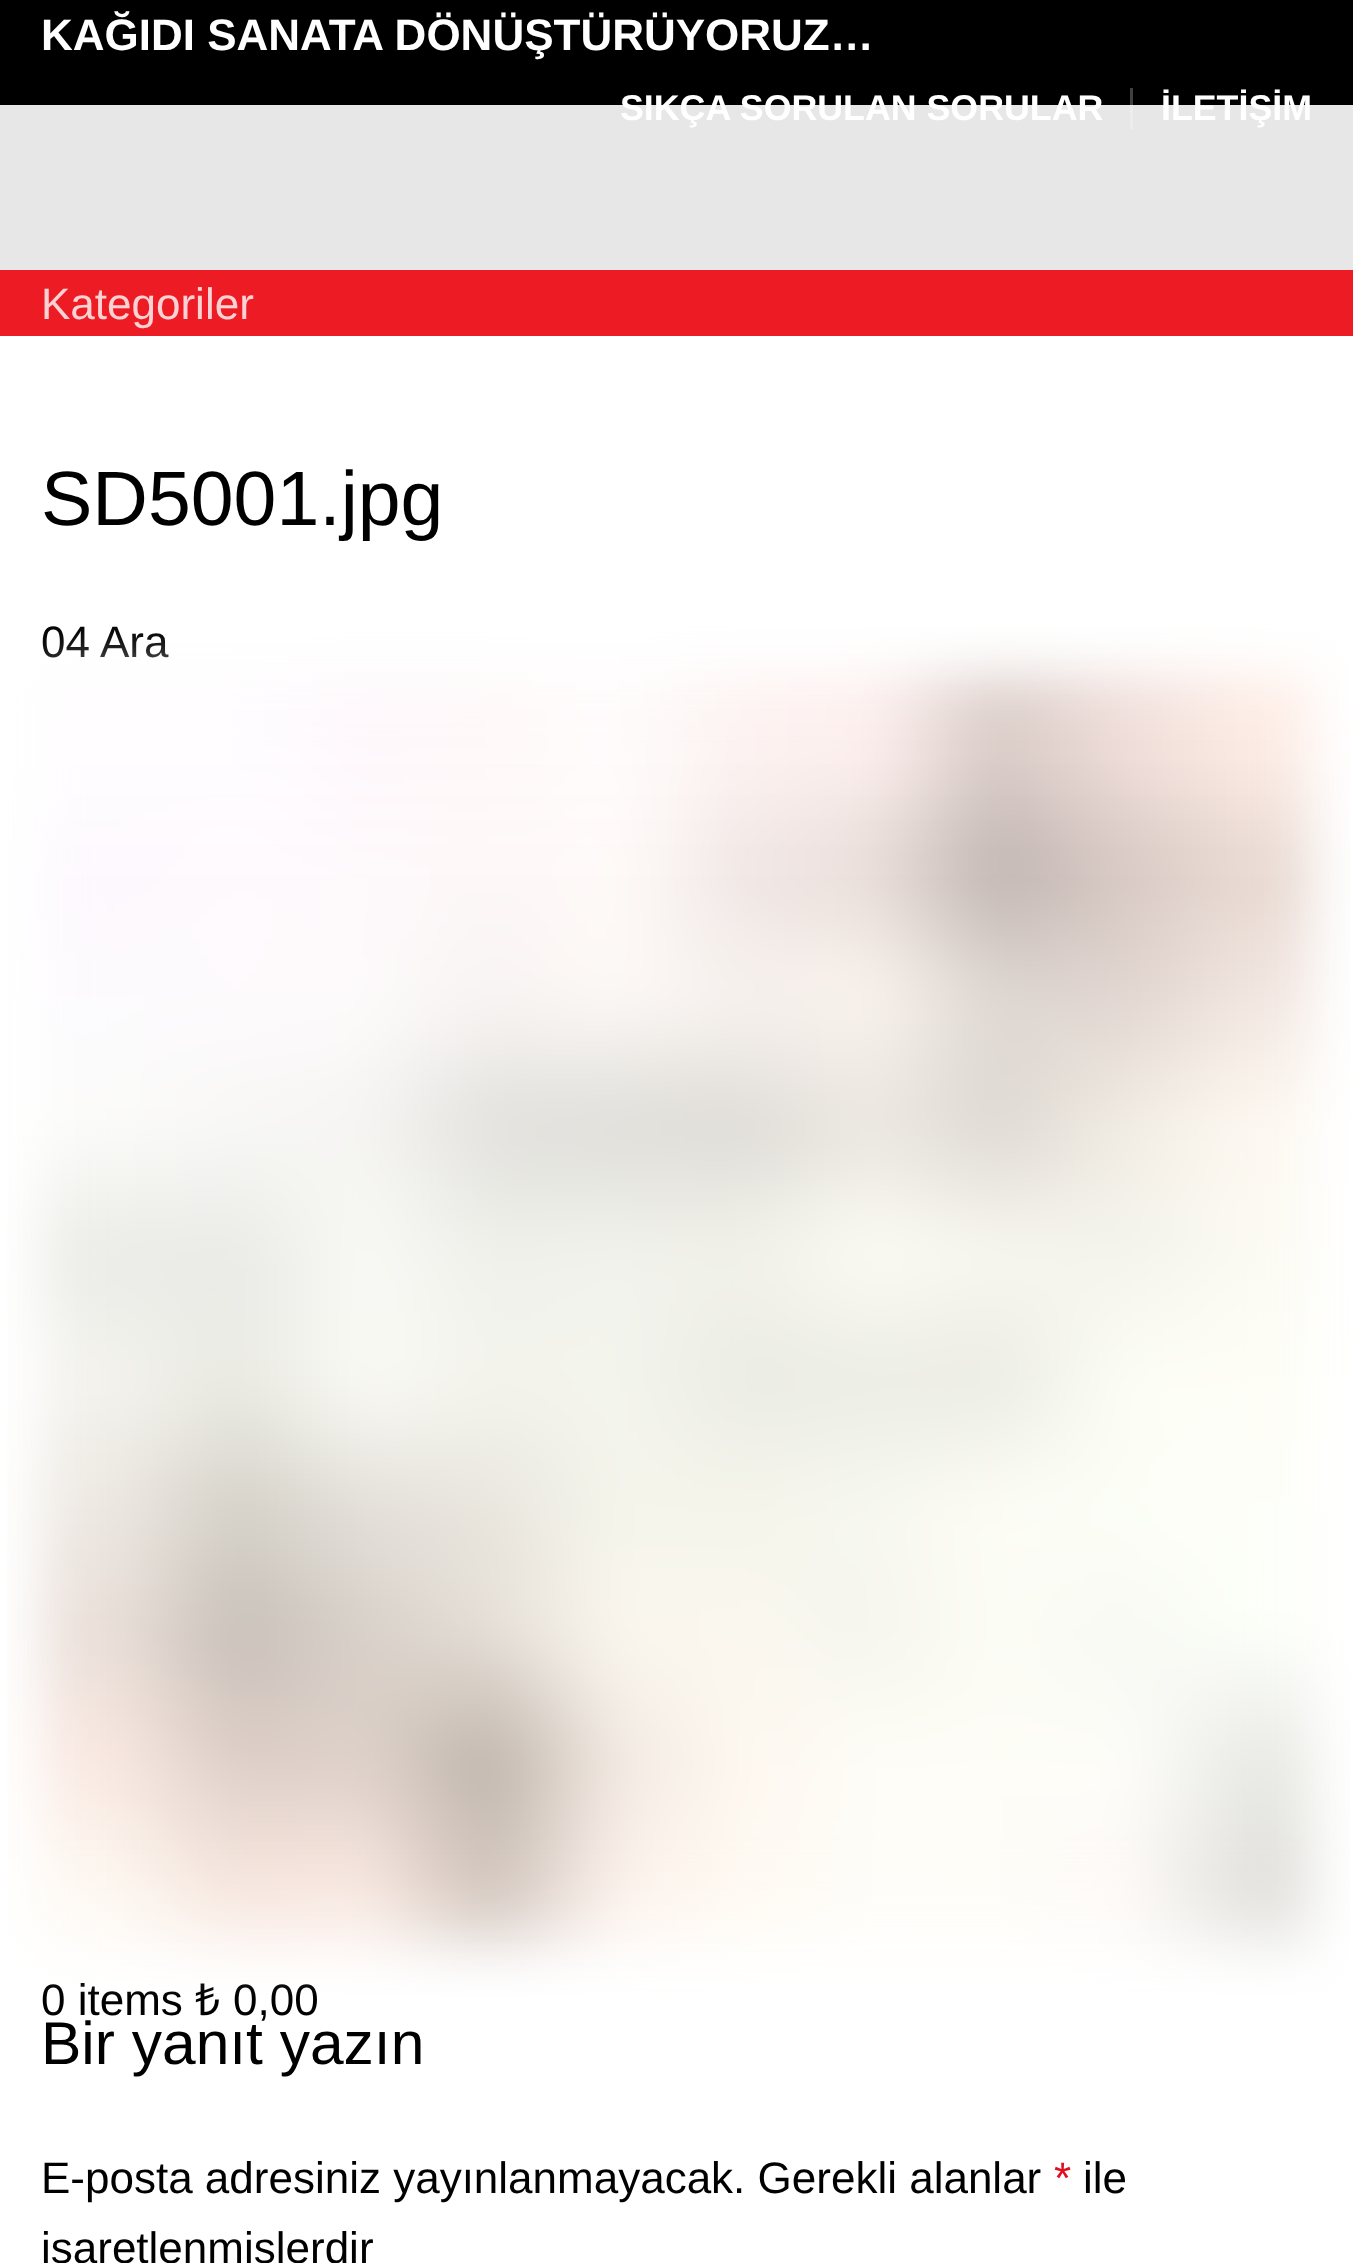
(async () => {
  const canvas = document.querySelector("canvas");
  canvas.width = 1353;
  canvas.height = 2263;
  const ctx = canvas.getContext("2d");
  ctx.miterLimit = 4;
  ctx.fontKerning = "normal";
  async function loadImage(src) {
    const img = new Image();
    img.src = src;
    await img.decode();
    return img;
  }

  ctx.fillStyle = "#000000";
  ctx.fillRect(0, 0, 1353, 2263);
  for (const [x, y, w, h, color] of [
    [1130, 88, 3, 17, "#404040"],
    [0, 270, 1353, 66, "#ed1c24"],
    [0, 105, 1353, 165, "#e7e7e7"],
    [1130, 105, 3, 24, "#ededed"],
    [0, 336, 1353, 1927, "#ffffff"],
  ]) {
    ctx.fillStyle = color;
    ctx.fillRect(x, y, w, h);
  }
  ctx.font = "bold 44px Liberation Sans";
  ctx.fillText("KAĞIDI SANATA DÖNÜŞTÜRÜYORUZ…", 41, 50);
  ctx.font = "bold 35.75px Liberation Sans";
  ctx.fillText("SIKÇA SORULAN SORULAR", 620, 120);
  ctx.fillText("İLETİŞİM", 1161, 120);
  ctx.font = "44px Liberation Sans";
  ctx.fillStyle = "#fbd2d3";
  ctx.fillText("Kategoriler", 41, 319);
  ctx.fillStyle = "#000000";
  ctx.fillText("0 items", 41, 2015);
  ctx.font = "44px Noto Sans";
  ctx.fillText("₺", 195, 2015);
  ctx.font = "44px Liberation Sans";
  ctx.fillText("0,00", 233, 2015);
  ctx.font = "77px Liberation Sans";
  ctx.fillText("SD5001.jpg", 41, 525);
  ctx.font = "44px Liberation Sans";
  ctx.fillText("04", 41, 657);
  ctx.fillText("Ara", 100, 657);
  ctx.drawImage(await loadImage("img/1.png"), 7, 627, 1343, 1368);
  ctx.font = "60.5px Liberation Sans";
  ctx.fillText("Bir yanıt yazın", 41, 2064);
  ctx.font = "44px Liberation Sans";
  ctx.fillText("E-posta adresiniz yayınlanmayacak. Gerekli alanlar", 41, 2193);
  ctx.fillStyle = "#e01020";
  ctx.fillText("*", 1054, 2193);
  ctx.fillStyle = "#000000";
  ctx.fillText("ile", 1083, 2193);
  ctx.fillText("işaretlenmişlerdir", 41, 2263);
})();
